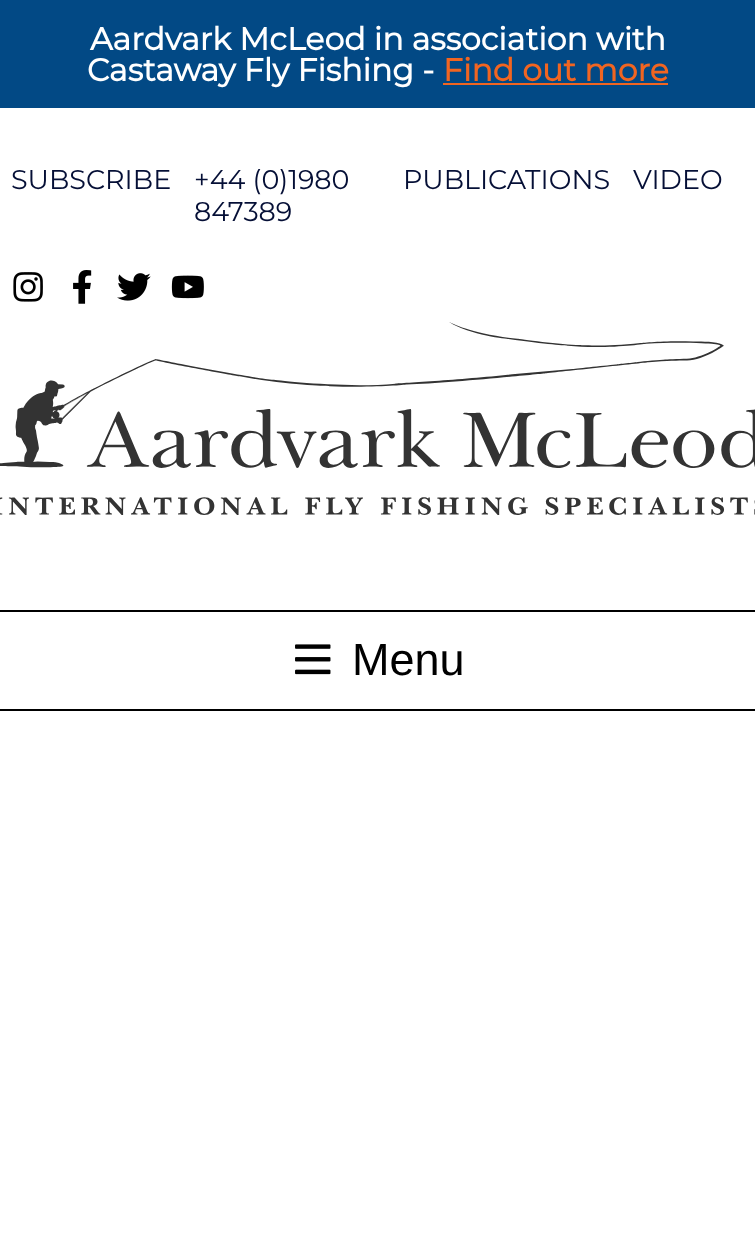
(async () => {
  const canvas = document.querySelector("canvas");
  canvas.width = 755;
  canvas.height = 1234;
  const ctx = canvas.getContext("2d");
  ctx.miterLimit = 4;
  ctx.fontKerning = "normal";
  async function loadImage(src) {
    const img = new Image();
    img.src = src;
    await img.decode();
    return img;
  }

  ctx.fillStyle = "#ffffff";
  ctx.fillRect(0, 0, 755, 1234);
  ctx.fillStyle = "#024985";
  ctx.fillRect(0, 0, 755, 108);
  ctx.fillStyle = "#f16521";
  ctx.fillRect(443, 83, 225, 2);
  ctx.drawImage(await loadImage("img/1.png"), 13, 272, 30, 30);
  ctx.drawImage(await loadImage("img/2.png"), 73, 270, 19, 34);
  ctx.drawImage(await loadImage("img/3.png"), 117, 273, 34, 28);
  ctx.drawImage(await loadImage("img/4.png"), 171, 275, 33, 24);
  ctx.drawImage(await loadImage("img/5.png"), 0, 322, 755, 193);
  ctx.fillStyle = "#000000";
  ctx.fillRect(0, 610, 755, 2);
  ctx.fillRect(0, 709, 755, 2);
  ctx.drawImage(await loadImage("img/6.png"), 295, 644, 36, 31);
  ctx.font = "bold 31.5px Montserrat";
  ctx.fillStyle = "#ffffff";
  ctx.fillText("Aardvark McLeod in association with", 90, 50);
  ctx.fillText("Castaway Fly Fishing -", 87, 81);
  ctx.fillStyle = "#f16521";
  ctx.fillText("Find out more", 443, 81);
  ctx.font = "27px Montserrat";
  ctx.fillStyle = "#050f36";
  for (const [text, x, y] of [
    ["SUBSCRIBE", 11, 189],
    ["+44 (0)1980", 194, 189],
    ["847389", 194, 221],
    ["PUBLICATIONS", 403, 189],
    ["VIDEO", 633, 189],
  ]) {
    ctx.fillText(text, x, y);
  }
  ctx.font = "45px Liberation Sans";
  ctx.fillStyle = "#000000";
  ctx.fillText("Menu", 352, 675);
})();
